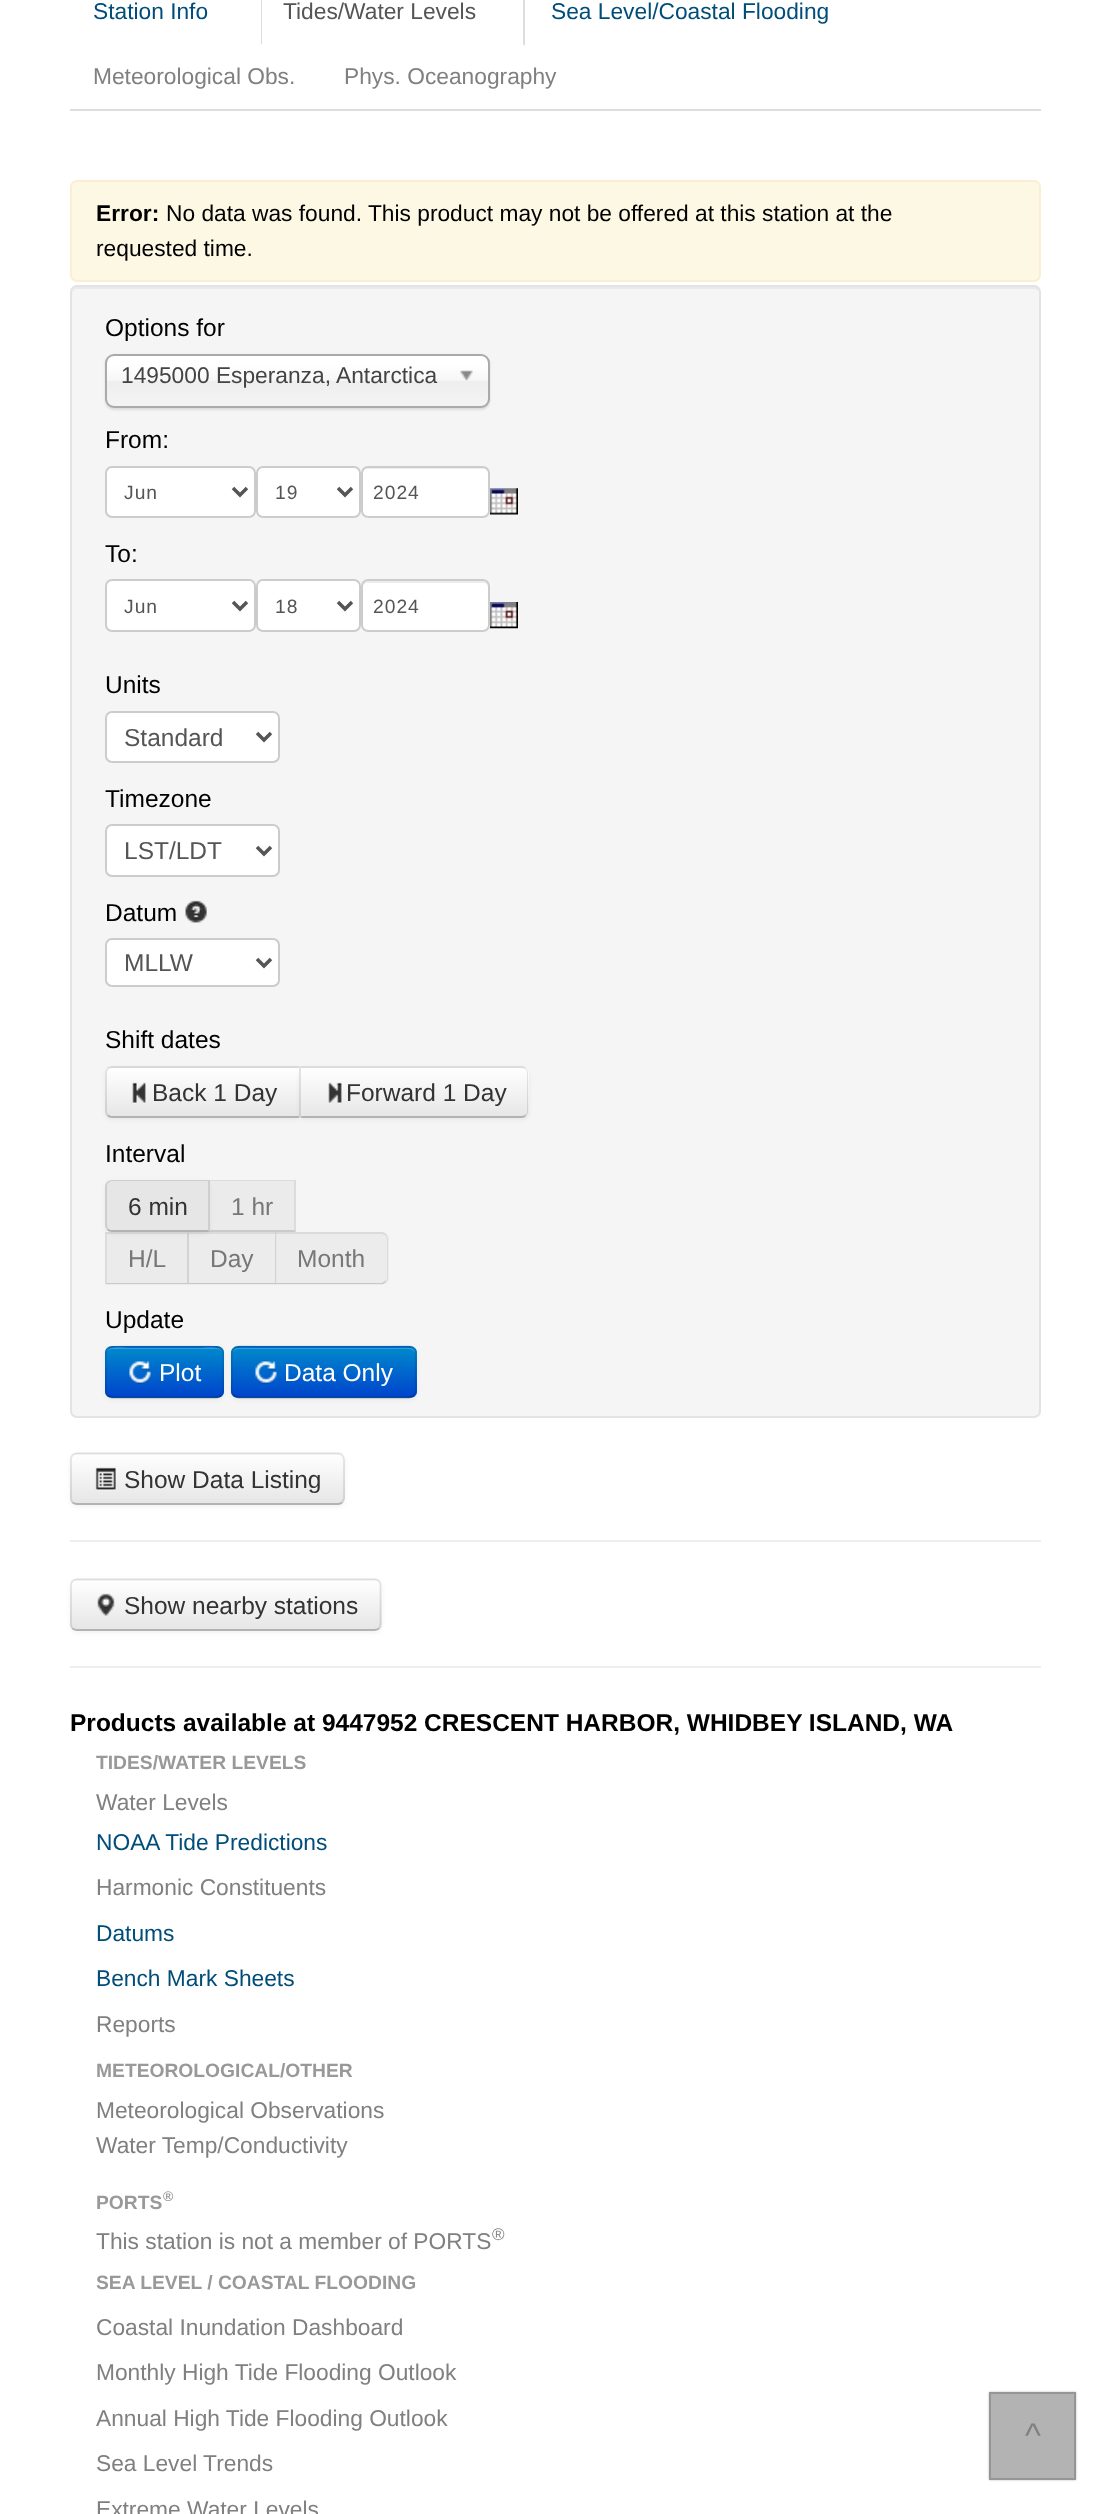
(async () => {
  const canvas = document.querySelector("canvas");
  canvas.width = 1111;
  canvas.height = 2514;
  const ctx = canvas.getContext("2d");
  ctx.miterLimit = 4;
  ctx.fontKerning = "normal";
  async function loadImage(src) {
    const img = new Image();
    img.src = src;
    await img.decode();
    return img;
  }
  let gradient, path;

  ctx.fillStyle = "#ffffff";
  ctx.fillRect(0, 0, 1111, 2514);
  ctx.fillStyle = "#dddddd";
  ctx.fillRect(70, 109, 971, 2);
  path = new Path2D("M525 46V-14C525-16 524-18 523-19L522-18C522-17 523-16 523-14V44Z");
  ctx.fill(path);
  path = new Path2D("M263-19C262-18 261-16 261-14V45L262 44V-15L264-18Z");
  ctx.fill(path);
  ctx.fillStyle = "#fcf8e3";
  ctx.beginPath();
  ctx.roundRect(71, 181, 969, 100, 6);
  ctx.fill();
  ctx.strokeStyle = "#fbeed5";
  ctx.lineWidth = 2;
  ctx.stroke();
  ctx.fillStyle = "#f5f5f5";
  ctx.beginPath();
  ctx.roundRect(70, 285, 971, 1133, 7);
  ctx.fill();
  ctx.fillStyle = "#e9e9e9";
  path = new Path2D("M77 289H1034C1037 289 1040 291 1040 294V292C1040 289 1038 287 1035 287H77C74 287 72 289 72 292V294C72 291 74 289 77 289Z");
  ctx.fill(path);
  ctx.beginPath();
  ctx.roundRect(71, 286, 969, 1131, 6);
  ctx.strokeStyle = "#e3e3e3";
  ctx.stroke();
  ctx.fillStyle = "rgba(0, 0, 0, 0.1)";
  ctx.filter = "blur(1px)";
  ctx.beginPath();
  ctx.roundRect(105, 355, 385, 55, 9);
  ctx.fill();
  ctx.filter = "none";
  gradient = ctx.createLinearGradient(298, 355, 298, 406);
  gradient.addColorStop(0.2, "#ffffff");
  gradient.addColorStop(0.5, "#f6f6f6");
  gradient.addColorStop(0.52, "#eeeeee");
  gradient.addColorStop(1, "#f4f4f4");
  ctx.fillStyle = gradient;
  ctx.beginPath();
  ctx.roundRect(107, 355, 381, 51, 7);
  ctx.fill();
  ctx.beginPath();
  ctx.roundRect(106, 355, 383, 52, 8);
  ctx.strokeStyle = "#aaaaaa";
  ctx.stroke();
  ctx.drawImage(await loadImage("img/1.png"), 460, 370, 13, 11);
  ctx.fillStyle = "#ffffff";
  ctx.beginPath();
  ctx.roundRect(106, 467, 149, 50, 6);
  ctx.fill();
  ctx.strokeStyle = "#cccccc";
  ctx.stroke();
  path = new Path2D("M233 488L240 495L247 488");
  ctx.strokeStyle = "#555555";
  ctx.lineWidth = 3.5;
  ctx.stroke(path);
  ctx.beginPath();
  ctx.roundRect(257, 467, 103, 50, 6);
  ctx.fill();
  ctx.strokeStyle = "#cccccc";
  ctx.lineWidth = 2;
  ctx.stroke();
  path = new Path2D("M338 488L345 495L352 488");
  ctx.strokeStyle = "#555555";
  ctx.lineWidth = 3.5;
  ctx.stroke(path);
  ctx.beginPath();
  ctx.roundRect(361, 466, 129, 52, 7);
  ctx.fill();
  ctx.fillStyle = "#ececec";
  path = new Path2D("M368 469H483C486 469 488 471 488 474V472C488 469 486 467 483 467H367C364 467 362 469 362 472V474C362 471 365 469 368 469Z");
  ctx.fill(path);
  ctx.beginPath();
  ctx.roundRect(362, 467, 127, 50, 6);
  ctx.strokeStyle = "#cccccc";
  ctx.lineWidth = 2;
  ctx.stroke();
  ctx.drawImage(await loadImage("img/2.png"), 490, 488, 28, 27);
  ctx.fillStyle = "#ffffff";
  ctx.beginPath();
  ctx.roundRect(106, 580, 149, 51, 6);
  ctx.fill();
  ctx.stroke();
  path = new Path2D("M233 602L240 609L247 602");
  ctx.strokeStyle = "#555555";
  ctx.lineWidth = 3.5;
  ctx.stroke(path);
  ctx.beginPath();
  ctx.roundRect(257, 580, 103, 51, 6);
  ctx.fill();
  ctx.strokeStyle = "#cccccc";
  ctx.lineWidth = 2;
  ctx.stroke();
  path = new Path2D("M338 602L345 609L352 602");
  ctx.strokeStyle = "#555555";
  ctx.lineWidth = 3.5;
  ctx.stroke(path);
  ctx.beginPath();
  ctx.roundRect(361, 579, 129, 53, 7);
  ctx.fill();
  ctx.fillStyle = "#ececec";
  path = new Path2D("M368 583H483C486 583 488 585 488 588V586C488 583 486 581 483 581H367C364 581 362 583 362 586V588C362 585 365 583 368 583Z");
  ctx.fill(path);
  ctx.beginPath();
  ctx.roundRect(362, 580, 127, 51, 6);
  ctx.strokeStyle = "#cccccc";
  ctx.lineWidth = 2;
  ctx.stroke();
  ctx.drawImage(await loadImage("img/3.png"), 490, 602, 28, 27);
  ctx.fillStyle = "#ffffff";
  ctx.beginPath();
  ctx.roundRect(106, 712, 173, 50, 6);
  ctx.fill();
  ctx.stroke();
  path = new Path2D("M257 733L264 740L271 733");
  ctx.strokeStyle = "#555555";
  ctx.lineWidth = 3.5;
  ctx.stroke(path);
  ctx.beginPath();
  ctx.roundRect(106, 825, 173, 51, 6);
  ctx.fill();
  ctx.strokeStyle = "#cccccc";
  ctx.lineWidth = 2;
  ctx.stroke();
  path = new Path2D("M257 847L264 854L271 847");
  ctx.strokeStyle = "#555555";
  ctx.lineWidth = 3.5;
  ctx.stroke(path);
  ctx.drawImage(await loadImage("img/4.png"), 185, 900, 22, 23);
  ctx.beginPath();
  ctx.roundRect(106, 939, 173, 47, 6);
  ctx.fill();
  ctx.strokeStyle = "#cccccc";
  ctx.lineWidth = 2;
  ctx.stroke();
  path = new Path2D("M257 959L264 966L271 959");
  ctx.strokeStyle = "#555555";
  ctx.lineWidth = 3.5;
  ctx.stroke(path);
  ctx.fillStyle = "rgba(0, 0, 0, 0.05)";
  ctx.filter = "blur(2px)";
  ctx.beginPath();
  ctx.roundRect(105, 1068, 196, 52, 7);
  ctx.fill();
  ctx.filter = "none";
  ctx.save();
  ctx.beginPath();
  ctx.roundRect(105, 1066, 196, 52, [7, 0, 0, 7]);
  ctx.clip();
  gradient = ctx.createLinearGradient(203, 1068, 203, 1117);
  gradient.addColorStop(0, "#ffffff");
  gradient.addColorStop(1, "#e6e6e6");
  ctx.fillStyle = gradient;
  ctx.fillRect(105, 1068, 194, 49);
  ctx.restore();
  ctx.fillStyle = "rgba(0, 0, 0, 0.1)";
  path = new Path2D("M112 1066C110 1066 108 1067 107 1068L109 1069L111 1068H299L301 1066Z");
  ctx.fill(path);
  ctx.fillStyle = "#b3b3b3";
  path = new Path2D("M301 1118H112C110 1118 108 1117 107 1116L109 1115L111 1116H299Z");
  ctx.fill(path);
  ctx.fillStyle = "rgba(0, 0, 0, 0.1)";
  path = new Path2D("M105 1073V1111C105 1113 106 1115 107 1116L109 1115C108 1114 107 1113 107 1111V1073C107 1071 108 1070 109 1069L107 1068C106 1069 105 1071 105 1073Z");
  ctx.fill(path);
  ctx.drawImage(await loadImage("img/5.png"), 132, 1082, 14, 22);
  ctx.fillStyle = "rgba(0, 0, 0, 0.05)";
  ctx.filter = "blur(2px)";
  ctx.beginPath();
  ctx.roundRect(299, 1068, 230, 52, 7);
  ctx.fill();
  ctx.filter = "none";
  ctx.fillStyle = "#f5f5f5";
  ctx.beginPath();
  ctx.roundRect(299, 1066, 230, 52, [0, 7, 7, 0]);
  ctx.fill();
  ctx.save();
  ctx.beginPath();
  ctx.roundRect(299, 1066, 230, 52, [0, 7, 7, 0]);
  ctx.clip();
  gradient = ctx.createLinearGradient(414, 1068, 414, 1117);
  gradient.addColorStop(0, "#ffffff");
  gradient.addColorStop(1, "#e6e6e6");
  ctx.fillStyle = gradient;
  ctx.fillRect(299, 1068, 230, 49);
  ctx.restore();
  ctx.fillStyle = "rgba(0, 0, 0, 0.1)";
  path = new Path2D("M526 1068C525 1067 524 1066 522 1066H300L302 1068H522L525 1069Z");
  ctx.fill(path);
  path = new Path2D("M526 1068C527 1069 528 1071 528 1073V1111C528 1113 527 1115 526 1116L525 1115C526 1114 527 1113 527 1111V1073C527 1071 526 1070 525 1069Z");
  ctx.fill(path);
  ctx.fillStyle = "#b3b3b3";
  path = new Path2D("M526 1116C525 1117 524 1118 522 1118H300L302 1116H522L525 1115Z");
  ctx.fill(path);
  ctx.fillStyle = "rgba(0, 0, 0, 0.1)";
  path = new Path2D("M301 1068V1116H302L299 1118V1066L302 1068Z");
  ctx.fill(path);
  ctx.drawImage(await loadImage("img/6.png"), 328, 1082, 14, 22);
  ctx.fillStyle = "#ebebeb";
  ctx.fillRect(210, 1180, 86, 52);
  ctx.fillStyle = "#dcdcdc";
  path = new Path2D("M208 1180H296L294 1181H210Z");
  ctx.fill(path);
  ctx.fillStyle = "rgba(86, 86, 86, 0.1)";
  path = new Path2D("M296 1180V1232L294 1230V1181Z");
  ctx.fill(path);
  ctx.fillStyle = "#cacaca";
  path = new Path2D("M296 1232H208L210 1230H294Z");
  ctx.fill(path);
  ctx.fillStyle = "#ebebeb";
  ctx.fillRect(105, 1232, 84, 53);
  ctx.fillStyle = "#dcdcdc";
  path = new Path2D("M105 1232H189L187 1234H107Z");
  ctx.fill(path);
  ctx.fillStyle = "rgba(86, 86, 86, 0.1)";
  path = new Path2D("M189 1232V1284L187 1283V1234Z");
  ctx.fill(path);
  ctx.fillStyle = "#cacaca";
  path = new Path2D("M189 1284H105L107 1283H187Z");
  ctx.fill(path);
  ctx.fillStyle = "rgba(86, 86, 86, 0.1)";
  path = new Path2D("M105 1284V1232L107 1234V1283Z");
  ctx.fill(path);
  ctx.fillStyle = "rgba(230, 230, 230, 0.65)";
  ctx.fillRect(187, 1232, 90, 53);
  ctx.fillStyle = "rgba(0, 0, 0, 0.07)";
  path = new Path2D("M187 1232H276L275 1234H189Z");
  ctx.fill(path);
  ctx.fillStyle = "rgba(86, 86, 86, 0.1)";
  path = new Path2D("M276 1232V1284L275 1283V1234Z");
  ctx.fill(path);
  ctx.fillStyle = "rgba(179, 179, 179, 0.65)";
  path = new Path2D("M276 1284H187L189 1283H275Z");
  ctx.fill(path);
  ctx.fillStyle = "rgba(0, 0, 0, 0.07)";
  path = new Path2D("M187 1284V1232L189 1234V1283Z");
  ctx.fill(path);
  ctx.fillStyle = "rgba(0, 0, 0, 0.05)";
  ctx.filter = "blur(2px)";
  ctx.beginPath();
  ctx.roundRect(105, 1181, 105, 53, 7);
  ctx.fill();
  ctx.filter = "none";
  ctx.fillStyle = "#e6e6e6";
  ctx.beginPath();
  ctx.roundRect(105, 1180, 105, 52, [7, 0, 0, 7]);
  ctx.fill();
  ctx.fillStyle = "rgba(0, 0, 0, 0.1)";
  path = new Path2D("M112 1180C110 1180 108 1181 107 1182L108 1183L111 1181H208V1182L210 1180Z");
  ctx.fill(path);
  path = new Path2D("M210 1232V1180L208 1182V1230Z");
  ctx.fill(path);
  ctx.fillStyle = "#b3b3b3";
  path = new Path2D("M210 1232L208 1230H111L108 1229L107 1230C108 1231 110 1232 112 1232Z");
  ctx.fill(path);
  ctx.fillStyle = "rgba(0, 0, 0, 0.1)";
  path = new Path2D("M105 1186V1225C105 1227 106 1229 107 1230L108 1229C108 1228 107 1226 107 1225V1186C107 1185 107 1184 108 1183L107 1182C106 1183 105 1184 105 1186Z");
  ctx.fill(path);
  ctx.fillStyle = "rgba(230, 230, 230, 0.65)";
  ctx.beginPath();
  ctx.roundRect(275, 1232, 114, 53, [0, 7, 7, 0]);
  ctx.fill();
  ctx.fillStyle = "rgba(0, 0, 0, 0.07)";
  path = new Path2D("M275 1232L277 1234H382L385 1235L386 1234C385 1233 384 1232 382 1232Z");
  ctx.fill(path);
  ctx.fillStyle = "rgba(86, 86, 86, 0.1)";
  path = new Path2D("M386 1234C387 1235 388 1237 388 1239V1278C388 1280 387 1281 386 1282L385 1281C386 1280 387 1279 387 1278V1239C387 1237 386 1236 385 1235Z");
  ctx.fill(path);
  ctx.fillStyle = "rgba(179, 179, 179, 0.65)";
  path = new Path2D("M386 1282L383 1284H275L276 1283H382L385 1281Z");
  ctx.fill(path);
  ctx.fillStyle = "rgba(0, 0, 0, 0.07)";
  path = new Path2D("M276 1234H277L275 1232V1284L276 1283Z");
  ctx.fill(path);
  ctx.fillStyle = "rgba(0, 0, 0, 0.05)";
  ctx.filter = "blur(2px)";
  ctx.beginPath();
  ctx.roundRect(105, 1348, 119, 52, 7);
  ctx.fill();
  ctx.filter = "none";
  ctx.fillStyle = "#006dcc";
  ctx.beginPath();
  ctx.roundRect(105, 1346, 119, 52, 7);
  ctx.fill();
  ctx.save();
  ctx.beginPath();
  ctx.roundRect(105, 1346, 119, 52, 7);
  ctx.clip();
  gradient = ctx.createLinearGradient(165, 1348, 165, 1397);
  gradient.addColorStop(0, "#0088cc");
  gradient.addColorStop(1, "#0044cc");
  ctx.fillStyle = gradient;
  ctx.fillRect(105, 1348, 119, 49);
  ctx.restore();
  ctx.fillStyle = "rgba(255, 255, 255, 0.2)";
  path = new Path2D("M112 1349H217C220 1349 222 1352 222 1354C222 1344 204 1348 200 1348H130C125 1348 107 1344 107 1354C107 1352 109 1349 112 1349Z");
  ctx.fill(path);
  path = new Path2D("M221.5 1395.5C220 1396.5 218.5 1397.5 217 1397.5H112C110.5 1397.5 109 1396.5 107.5 1395.5");
  ctx.strokeStyle = "rgba(0, 0, 0, 0.25)";
  ctx.lineWidth = 1.8;
  ctx.stroke(path);
  path = new Path2D("M107.5 1395.5C105 1393 106 1388 106 1385V1372C106 1344 101.5 1346.5 129.5 1346.5H199.5C227.5 1346.5 223 1344 223 1372V1385C223 1388 224 1393 221.5 1395.5");
  ctx.strokeStyle = "rgba(0, 0, 0, 0.1)";
  ctx.stroke(path);
  ctx.drawImage(await loadImage("img/7.png"), 129, 1361, 22, 23);
  ctx.fillStyle = "rgba(0, 0, 0, 0.05)";
  ctx.filter = "blur(2px)";
  ctx.beginPath();
  ctx.roundRect(231, 1348, 186, 52, 7);
  ctx.fill();
  ctx.filter = "none";
  ctx.fillStyle = "#006dcc";
  ctx.beginPath();
  ctx.roundRect(231, 1346, 186, 52, 7);
  ctx.fill();
  ctx.save();
  ctx.beginPath();
  ctx.roundRect(231, 1346, 186, 52, 7);
  ctx.clip();
  gradient = ctx.createLinearGradient(324, 1348, 324, 1397);
  gradient.addColorStop(0, "#0088cc");
  gradient.addColorStop(1, "#0044cc");
  ctx.fillStyle = gradient;
  ctx.fillRect(231, 1348, 186, 49);
  ctx.restore();
  ctx.fillStyle = "rgba(255, 255, 255, 0.2)";
  path = new Path2D("M238 1349H410C412 1349 415 1352 415 1354C415 1351 414 1349 411 1348H237C234 1349 233 1351 233 1354C233 1352 235 1349 238 1349Z");
  ctx.fill(path);
  path = new Path2D("M414 1395.5C412.5 1396.5 411 1397.5 409.5 1397.5H238C236.5 1397.5 235 1396.5 233.5 1395.5");
  ctx.strokeStyle = "rgba(0, 0, 0, 0.25)";
  ctx.stroke(path);
  path = new Path2D("M233.5 1395.5C230 1392 232 1382.5 232 1378.5C232 1340 225.5 1346.5 266.5 1346.5H381C422 1346.5 415.5 1340 415.5 1378.5C415.5 1382.5 417.5 1392 414 1395.5");
  ctx.strokeStyle = "rgba(0, 0, 0, 0.1)";
  ctx.stroke(path);
  ctx.drawImage(await loadImage("img/7.png"), 255, 1361, 22, 23);
  ctx.fillStyle = "rgba(0, 0, 0, 0.05)";
  ctx.filter = "blur(2px)";
  ctx.beginPath();
  ctx.roundRect(70, 1454, 275, 53, 7);
  ctx.fill();
  ctx.filter = "none";
  ctx.fillStyle = "#f5f5f5";
  ctx.beginPath();
  ctx.roundRect(70, 1453, 275, 52, 7);
  ctx.fill();
  ctx.save();
  ctx.beginPath();
  ctx.roundRect(70, 1453, 275, 52, 7);
  ctx.clip();
  gradient = ctx.createLinearGradient(207, 1454, 207, 1503);
  gradient.addColorStop(0, "#ffffff");
  gradient.addColorStop(1, "#e6e6e6");
  ctx.fillStyle = gradient;
  ctx.fillRect(70, 1454, 275, 49);
  ctx.restore();
  path = new Path2D("M342 1502.5C341 1503.5 339.5 1504 338 1504H77C75.5 1504 74 1503.5 72.5 1502.5");
  ctx.strokeStyle = "#b3b3b3";
  ctx.stroke(path);
  path = new Path2D("M72.5 1502.5C71.5 1501 71 1499.5 71 1498V1459.5C71 1458 71.5 1456.5 72.5 1455C74 1454 75.5 1453.5 77 1453.5H338C339.5 1453.5 341 1454 342 1455C343 1456.5 344 1458 344 1459.5V1498C344 1499.5 343 1501 342 1502.5");
  ctx.strokeStyle = "rgba(0, 0, 0, 0.1)";
  ctx.stroke(path);
  ctx.drawImage(await loadImage("img/8.png"), 95, 1467, 21, 24);
  ctx.fillStyle = "#eeeeee";
  ctx.fillRect(70, 1540, 971, 2);
  ctx.fillStyle = "rgba(0, 0, 0, 0.05)";
  ctx.filter = "blur(2px)";
  ctx.beginPath();
  ctx.roundRect(70, 1580, 312, 53, 7);
  ctx.fill();
  ctx.filter = "none";
  ctx.fillStyle = "#f5f5f5";
  ctx.beginPath();
  ctx.roundRect(70, 1579, 312, 52, 7);
  ctx.fill();
  ctx.save();
  ctx.beginPath();
  ctx.roundRect(70, 1579, 312, 52, 7);
  ctx.clip();
  gradient = ctx.createLinearGradient(226, 1580, 226, 1629);
  gradient.addColorStop(0, "#ffffff");
  gradient.addColorStop(1, "#e6e6e6");
  ctx.fillStyle = gradient;
  ctx.fillRect(70, 1580, 312, 49);
  ctx.restore();
  path = new Path2D("M379 1628.5C377.5 1629.5 376 1630 374.5 1630H77C75.5 1630 74 1629.5 72.5 1628.5");
  ctx.strokeStyle = "#b3b3b3";
  ctx.stroke(path);
  path = new Path2D("M72.5 1628.5C71.5 1627 71 1625.5 71 1624V1585.5C71 1584 71.5 1582.5 72.5 1581C74 1580 75.5 1579.5 77 1579.5H374.5C376 1579.5 377.5 1580 379 1581C380 1582.5 380.5 1584 380.5 1585.5V1624C380.5 1625.5 380 1627 379 1628.5");
  ctx.strokeStyle = "rgba(0, 0, 0, 0.1)";
  ctx.stroke(path);
  ctx.drawImage(await loadImage("img/9.png"), 97, 1593, 18, 23);
  ctx.fillStyle = "#eeeeee";
  ctx.fillRect(70, 1666, 971, 2);
  ctx.save();
  path = new Path2D("M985 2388H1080V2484H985ZM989 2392H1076V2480H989Z");
  ctx.clip(path, "evenodd");
  ctx.fillStyle = "rgba(128, 128, 128, 0.5)";
  ctx.filter = "blur(1px)";
  ctx.beginPath();
  ctx.rect(989, 2392, 87, 88);
  ctx.fill();
  ctx.filter = "none";
  ctx.restore();
  ctx.fillStyle = "rgba(128, 128, 128, 0.6)";
  ctx.fillRect(989, 2392, 87, 88);
  ctx.strokeStyle = "rgba(128, 128, 128, 0.6)";
  ctx.lineWidth = 2;
  ctx.strokeRect(990, 2393, 85, 86);
  ctx.font = "22.75px Liberation Sans";
  ctx.fillStyle = "#004d7a";
  ctx.fillText("Station Info", 93, 19);
  ctx.fillStyle = "#555555";
  ctx.fillText("Tides/Water Levels", 283, 19);
  ctx.fillStyle = "#004d7a";
  ctx.fillText("Sea Level/Coastal Flooding", 551, 19);
  ctx.fillStyle = "#808080";
  ctx.fillText("Meteorological Obs.", 93, 84);
  ctx.fillText("Phys. Oceanography", 344, 84);
  ctx.font = "bold 22.75px Liberation Sans";
  ctx.fillStyle = "#000000";
  ctx.fillText("Error:", 96, 221);
  ctx.font = "22.75px Liberation Sans";
  ctx.fillText("No data was found. This product may not be offered at this station at the", 166, 221);
  ctx.fillText("requested time.", 96, 256);
  ctx.font = "24.5px Liberation Sans";
  ctx.fillText("Options for", 105, 336);
  ctx.font = "22.75px Liberation Sans";
  ctx.fillStyle = "#444444";
  ctx.fillText("1495000 Esperanza, Antarctica", 121, 383);
  ctx.font = "24.5px Liberation Sans";
  ctx.fillStyle = "#000000";
  ctx.fillText("From:", 105, 448);
  ctx.letterSpacing = "1px";
  ctx.font = "19.25px Liberation Sans";
  ctx.fillStyle = "#555555";
  for (const [text, x, y] of [
    ["Jun", 124, 499],
    ["19", 275, 499],
    ["2024", 373, 499],
  ]) {
    ctx.fillText(text, x, y);
  }
  ctx.letterSpacing = "0px";
  ctx.font = "24.5px Liberation Sans";
  ctx.fillStyle = "#000000";
  ctx.fillText("To:", 105, 562);
  ctx.letterSpacing = "1px";
  ctx.font = "19.25px Liberation Sans";
  ctx.fillStyle = "#555555";
  for (const [text, x, y] of [
    ["Jun", 124, 613],
    ["18", 275, 613],
    ["2024", 373, 613],
  ]) {
    ctx.fillText(text, x, y);
  }
  ctx.letterSpacing = "0px";
  ctx.font = "24.5px Liberation Sans";
  ctx.fillStyle = "#000000";
  ctx.fillText("Units", 105, 693);
  ctx.fillStyle = "#555555";
  ctx.fillText("Standard", 124, 746);
  ctx.fillStyle = "#000000";
  ctx.fillText("Timezone", 105, 807);
  ctx.fillStyle = "#555555";
  ctx.fillText("LST/LDT", 124, 859);
  ctx.fillStyle = "#000000";
  ctx.fillText("Datum", 105, 921);
  ctx.fillStyle = "#555555";
  ctx.fillText("MLLW", 124, 971);
  ctx.fillStyle = "#000000";
  ctx.fillText("Shift dates", 105, 1048);
  ctx.fillStyle = "#333333";
  ctx.fillText("Back 1 Day", 152, 1101);
  ctx.fillText("Forward 1 Day", 346, 1101);
  ctx.fillStyle = "#000000";
  ctx.fillText("Interval", 105, 1162);
  ctx.fillStyle = "#333333";
  ctx.fillText("6 min", 128, 1215);
  ctx.fillStyle = "#777777";
  for (const [text, x, y] of [
    ["1 hr", 231, 1215],
    ["H/L", 128, 1267],
    ["Day", 210, 1267],
    ["Month", 297, 1267],
  ]) {
    ctx.fillText(text, x, y);
  }
  ctx.fillStyle = "#000000";
  ctx.fillText("Update", 105, 1328);
  ctx.fillStyle = "#ffffff";
  ctx.fillText("Plot", 159, 1381);
  ctx.fillText("Data Only", 284, 1381);
  ctx.fillStyle = "#333333";
  ctx.fillText("Show Data Listing", 124, 1488);
  ctx.fillText("Show nearby stations", 124, 1614);
  ctx.font = "bold 24.5px Liberation Sans";
  ctx.fillStyle = "#000000";
  ctx.fillText("Products available at 9447952 CRESCENT HARBOR, WHIDBEY ISLAND, WA", 70, 1731);
  ctx.font = "bold 19.25px Liberation Sans";
  ctx.fillStyle = "#999999";
  ctx.fillText("TIDES/WATER LEVELS", 96, 1769);
  ctx.font = "22.75px Liberation Sans";
  ctx.fillStyle = "#808080";
  ctx.fillText("Water Levels", 96, 1810);
  ctx.fillStyle = "#004d7a";
  ctx.fillText("NOAA Tide Predictions", 96, 1850);
  ctx.fillStyle = "#808080";
  ctx.fillText("Harmonic Constituents", 96, 1895);
  ctx.fillStyle = "#004d7a";
  ctx.fillText("Datums", 96, 1941);
  ctx.fillText("Bench Mark Sheets", 96, 1986);
  ctx.fillStyle = "#808080";
  ctx.fillText("Reports", 96, 2032);
  ctx.font = "bold 19.25px Liberation Sans";
  ctx.fillStyle = "#999999";
  ctx.fillText("METEOROLOGICAL/OTHER", 96, 2077);
  ctx.font = "22.75px Liberation Sans";
  ctx.fillStyle = "#808080";
  ctx.fillText("Meteorological Observations", 96, 2118);
  ctx.fillText("Water Temp/Conductivity", 96, 2153);
  ctx.font = "bold 19.25px Liberation Sans";
  ctx.fillStyle = "#999999";
  ctx.fillText("PORTS", 96, 2209);
  ctx.font = "bold 14px Liberation Sans";
  ctx.fillText("®", 163, 2201);
  ctx.font = "22.75px Liberation Sans";
  ctx.fillStyle = "#808080";
  ctx.fillText("This station is not a member of PORTS", 96, 2249);
  ctx.font = "17px Liberation Sans";
  ctx.fillText("®", 492, 2240);
  ctx.font = "bold 19.25px Liberation Sans";
  ctx.fillStyle = "#999999";
  ctx.fillText("SEA LEVEL / COASTAL FLOODING", 96, 2289);
  ctx.font = "22.75px Liberation Sans";
  ctx.fillStyle = "#808080";
  for (const [text, x, y] of [
    ["Coastal Inundation Dashboard", 96, 2335],
    ["Monthly High Tide Flooding Outlook", 96, 2380],
    ["Annual High Tide Flooding Outlook", 96, 2426],
    ["Sea Level Trends", 96, 2471],
    ["Extreme Water Levels", 96, 2517],
  ]) {
    ctx.fillText(text, x, y);
  }
  ctx.font = "34px Liberation Sans";
  ctx.fillText("^", 1025, 2447);
})();
